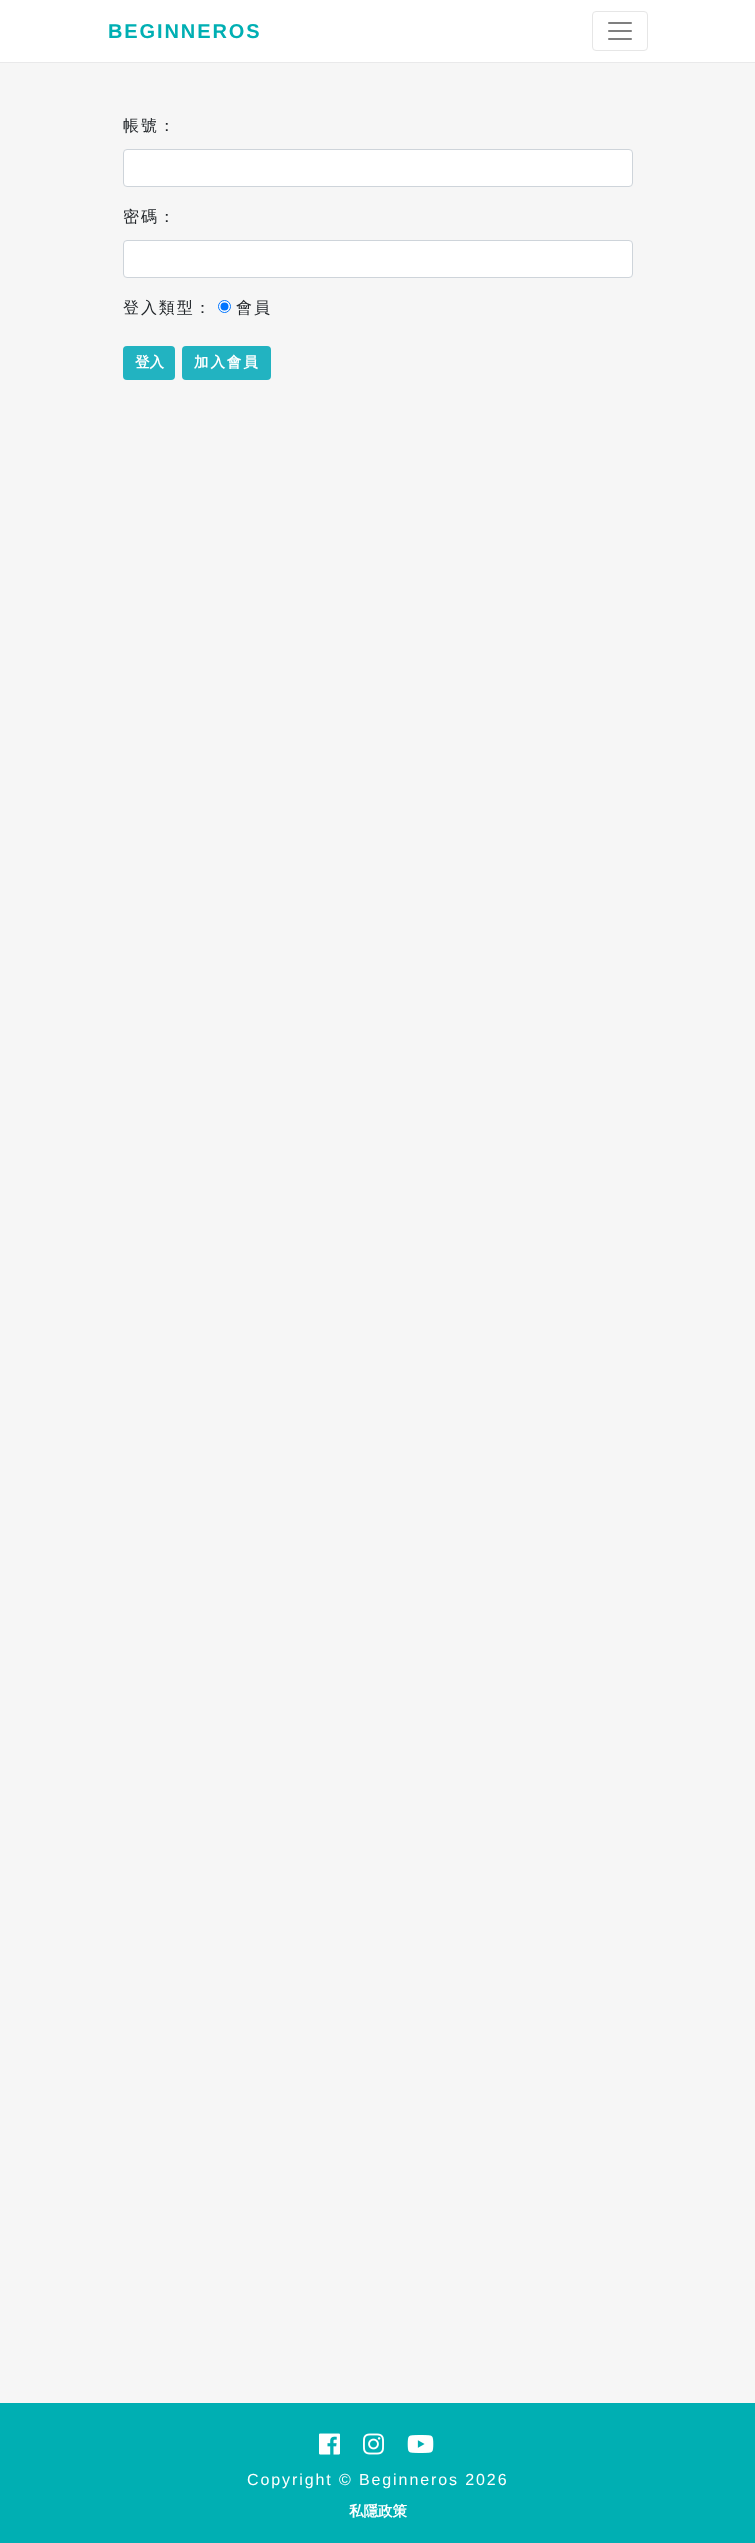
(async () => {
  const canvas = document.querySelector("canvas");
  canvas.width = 755;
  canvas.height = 2543;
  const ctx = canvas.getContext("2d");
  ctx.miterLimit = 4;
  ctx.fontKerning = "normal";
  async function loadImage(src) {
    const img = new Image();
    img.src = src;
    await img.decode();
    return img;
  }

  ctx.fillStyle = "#f6f6f6";
  ctx.fillRect(0, 0, 755, 2543);
  ctx.fillStyle = "#ffffff";
  ctx.fillRect(0, 0, 755, 62);
  ctx.fillStyle = "#e9e9ea";
  ctx.fillRect(0, 62, 755, 1);
  ctx.beginPath();
  ctx.roundRect(592.5, 11.5, 55, 39, 3.5);
  ctx.strokeStyle = "#e6e6e6";
  ctx.stroke();
  ctx.drawImage(await loadImage("img/1.png"), 608, 22, 24, 18);
  ctx.fillStyle = "#ffffff";
  ctx.beginPath();
  ctx.roundRect(123.5, 149.5, 509, 37, 3.5);
  ctx.fill();
  ctx.strokeStyle = "#ced4da";
  ctx.stroke();
  ctx.beginPath();
  ctx.roundRect(123.5, 240.5, 509, 37, 3.5);
  ctx.fill();
  ctx.stroke();
  ctx.beginPath();
  ctx.arc(224.5, 306.5, 6, 0, Math.PI * 2);
  ctx.fill();
  ctx.strokeStyle = "#0075ff";
  ctx.stroke();
  ctx.fillStyle = "#0075ff";
  ctx.beginPath();
  ctx.arc(224.5, 306.5, 4, 0, Math.PI * 2);
  ctx.fill();
  ctx.fillStyle = "#22b3c1";
  ctx.beginPath();
  ctx.roundRect(123, 346, 52, 34, 4);
  ctx.fill();
  ctx.beginPath();
  ctx.roundRect(182, 346, 89, 34, 4);
  ctx.fill();
  ctx.fillStyle = "#00afb3";
  ctx.fillRect(0, 2403, 755, 140);
  ctx.drawImage(await loadImage("img/2.png"), 319, 2433, 21, 22);
  ctx.drawImage(await loadImage("img/3.png"), 363, 2433, 21, 22);
  ctx.drawImage(await loadImage("img/4.png"), 407, 2435, 27, 18);
  ctx.letterSpacing = "1.9px";
  ctx.font = "bold 20px Liberation Sans";
  ctx.fillText("BEGINNEROS", 108, 38);
  ctx.font = "500 16px WenQuanYi Zen Hei";
  ctx.fillStyle = "#212529";
  for (const [text, x, y] of [
    ["帳號：", 123, 131],
    ["密碼：", 123, 222],
    ["登入類型：", 123, 313],
    ["會員", 236, 313],
  ]) {
    ctx.fillText(text, x, y);
  }
  ctx.letterSpacing = "0px";
  ctx.font = "bold 14.5px WenQuanYi Zen Hei";
  ctx.fillStyle = "#ffffff";
  ctx.fillText("登入", 135, 367);
  ctx.letterSpacing = "1.9px";
  ctx.fillText("加入會員", 194, 367);
  ctx.font = "16px Liberation Sans";
  ctx.fillText("Copyright © Beginneros 2026", 247, 2485);
  ctx.letterSpacing = "0px";
  ctx.font = "bold 14.5px WenQuanYi Zen Hei";
  ctx.fillText("私隱政策", 349, 2516);
})();
